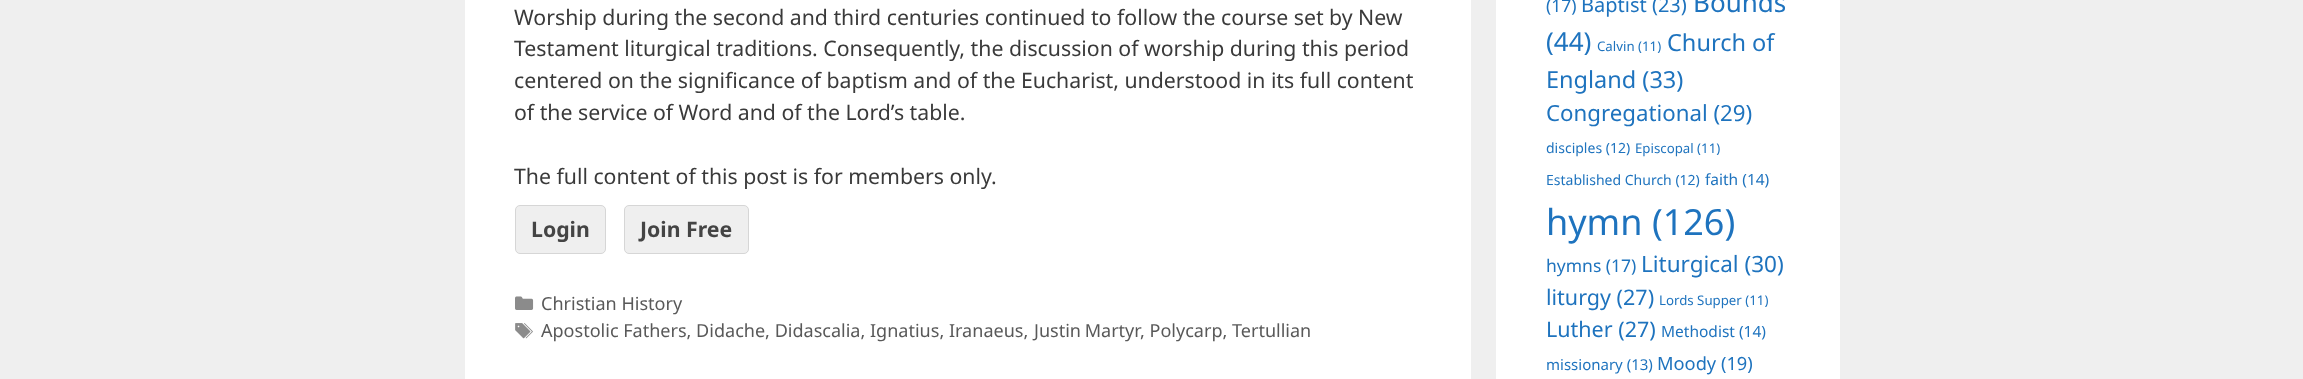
(async () => {
  const canvas = document.querySelector("canvas");
  canvas.width = 2303;
  canvas.height = 379;
  const ctx = canvas.getContext("2d");
  ctx.miterLimit = 4;
  ctx.fontKerning = "normal";
  async function loadImage(src) {
    const img = new Image();
    img.src = src;
    await img.decode();
    return img;
  }

  ctx.fillStyle = "#efefef";
  ctx.fillRect(0, 0, 2303, 379);
  ctx.fillStyle = "#ffffff";
  ctx.fillRect(465, 0, 1006, 379);
  ctx.fillStyle = "#efefef";
  ctx.beginPath();
  ctx.roundRect(515.5, 205.5, 90, 48, 4.5);
  ctx.fill();
  ctx.strokeStyle = "#d6d6d6";
  ctx.stroke();
  ctx.beginPath();
  ctx.roundRect(624.5, 205.5, 124, 48, 4.5);
  ctx.fill();
  ctx.stroke();
  ctx.drawImage(await loadImage("img/1.png"), 515, 296, 19, 14);
  ctx.drawImage(await loadImage("img/2.png"), 515, 323, 18, 16);
  ctx.fillStyle = "#ffffff";
  ctx.fillRect(1496, 0, 344, 379);
  ctx.font = "21.25px Noto Sans";
  ctx.fillStyle = "#3a3a3a";
  for (const [text, x, y] of [
    ["Worship during the second and third centuries continued to follow the course set by New", 514, 25],
    ["Testament liturgical traditions. Consequently, the discussion of worship during this period", 514, 56],
    ["centered on the significance of baptism and of the Eucharist, understood in its full content", 514, 88],
    ["of the service of Word and of the Lord’s table.", 514, 120],
    ["The full content of this post is for members only.", 514, 184],
  ]) {
    ctx.fillText(text, x, y);
  }
  ctx.font = "bold 21.25px Noto Sans";
  ctx.fillStyle = "#444444";
  ctx.fillText("Login", 531, 237);
  ctx.fillText("Join Free", 640, 237);
  ctx.font = "18.05px Noto Sans";
  ctx.fillStyle = "#595959";
  ctx.fillText("Christian History", 541, 310);
  ctx.fillText("Apostolic Fathers, Didache, Didascalia, Ignatius, Iranaeus,", 541, 337);
  ctx.wordSpacing = "-1px";
  ctx.fillText("Justin Martyr", 1034, 337);
  ctx.wordSpacing = "0px";
  ctx.fillText(", Polycarp, Tertullian", 1140, 337);
  ctx.font = "17.5px Noto Sans";
  ctx.fillStyle = "#1e73be";
  ctx.fillText("(17)", 1546, 12);
  ctx.font = "20px Noto Sans";
  ctx.fillText("Baptist (23)", 1581, 12);
  ctx.font = "26px Noto Sans";
  ctx.fillText("Bounds", 1693, 12);
  ctx.fillText("(44)", 1546, 51);
  ctx.font = "13.25px Noto Sans";
  ctx.fillText("Calvin (11)", 1597, 51);
  ctx.font = "23.5px Noto Sans";
  ctx.fillText("Church of", 1667, 51);
  ctx.fillText("England (33)", 1546, 88);
  ctx.font = "22.25px Noto Sans";
  ctx.fillText("Congregational (29)", 1546, 121);
  ctx.font = "14px Noto Sans";
  ctx.fillText("disciples (12)", 1546, 153);
  ctx.font = "13.25px Noto Sans";
  ctx.fillText("Episcopal (11)", 1635, 153);
  ctx.font = "14px Noto Sans";
  ctx.fillText("Established Church (12)", 1546, 185);
  ctx.font = "15.5px Noto Sans";
  ctx.fillText("faith (14)", 1705, 185);
  ctx.font = "36px Noto Sans";
  ctx.fillText("hymn (126)", 1546, 235);
  ctx.font = "17.5px Noto Sans";
  ctx.fillText("hymns (17)", 1546, 272);
  ctx.font = "22.5px Noto Sans";
  ctx.fillText("Liturgical (30)", 1641, 272);
  ctx.font = "21.5px Noto Sans";
  ctx.fillText("liturgy (27)", 1546, 305);
  ctx.font = "13.25px Noto Sans";
  ctx.fillText("Lords Supper (11)", 1659, 305);
  ctx.font = "21.5px Noto Sans";
  ctx.fillText("Luther (27)", 1546, 337);
  ctx.font = "15.5px Noto Sans";
  ctx.fillText("Methodist (14)", 1661, 337);
  ctx.font = "15px Noto Sans";
  ctx.fillText("missionary (13)", 1546, 370);
  ctx.font = "18.25px Noto Sans";
  ctx.fillText("Moody (19)", 1657, 370);
})();
